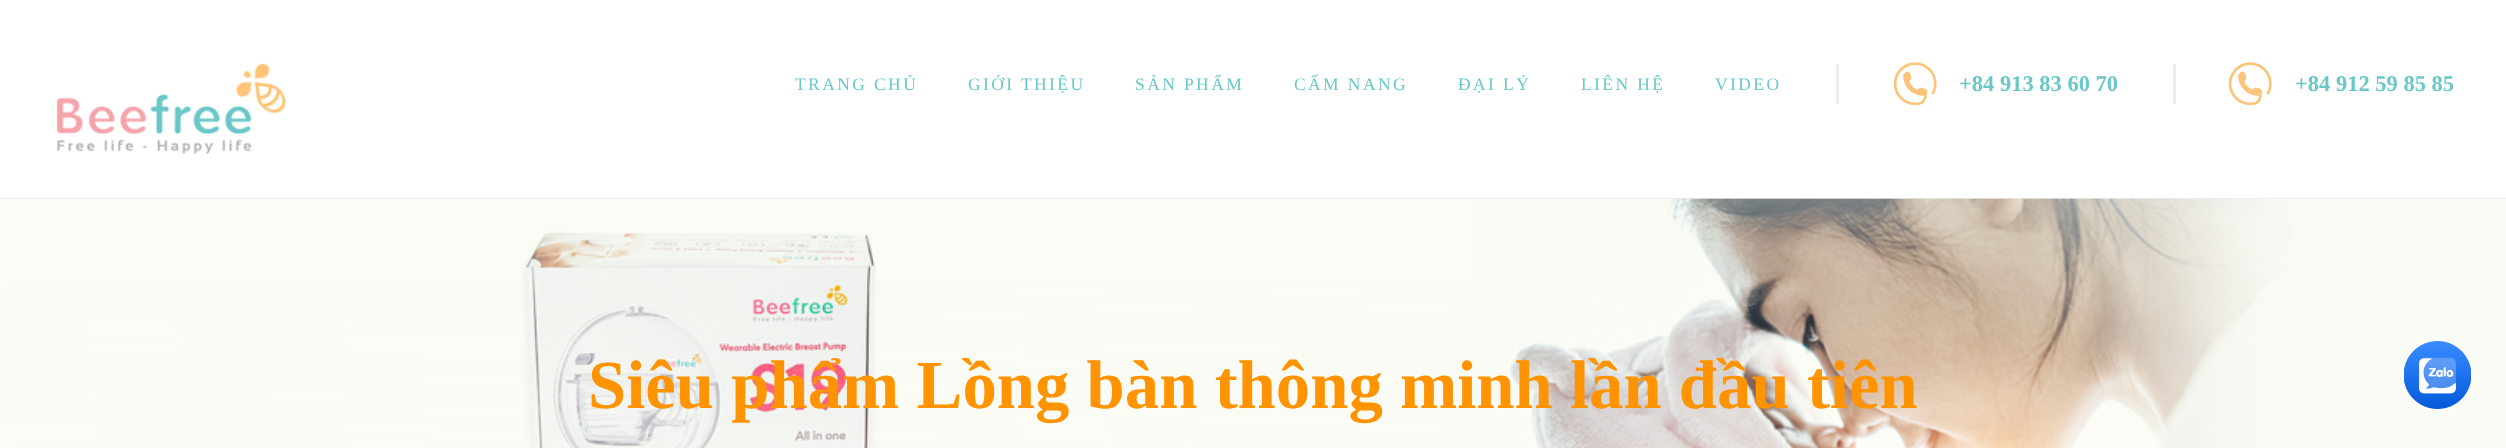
(async () => {
  const canvas = document.querySelector("canvas");
  canvas.width = 2506;
  canvas.height = 448;
  const ctx = canvas.getContext("2d");
  ctx.miterLimit = 4;
  ctx.fontKerning = "normal";
  async function loadImage(src) {
    const img = new Image();
    img.src = src;
    await img.decode();
    return img;
  }

  ctx.fillStyle = "#ffffff";
  ctx.fillRect(0, 0, 2506, 448);
  ctx.fillStyle = "#eaeaea";
  ctx.fillRect(0, 198, 2506, 1);
  ctx.drawImage(await loadImage("img/1.png"), 56, 63, 230, 91);
  ctx.fillStyle = "#eeedea";
  ctx.fillRect(1836, 64, 3, 40);
  ctx.drawImage(await loadImage("img/2.png"), 1893, 62, 44, 44);
  ctx.fillRect(2173, 64, 3, 40);
  ctx.drawImage(await loadImage("img/2.png"), 2228, 62, 44, 44);
  ctx.drawImage(await loadImage("img/3.png"), 0, 198, 2506, 250);
  ctx.beginPath();
  ctx.roundRect(2402.5, 340.5, 70, 69, 34.5);
  ctx.strokeStyle = "#ffffff";
  ctx.lineWidth = 3;
  ctx.stroke();
  ctx.drawImage(await loadImage("img/4.png"), 2404, 341, 67, 68);
  ctx.letterSpacing = "2.4px";
  ctx.font = "17.5px Liberation Serif";
  ctx.fillStyle = "#6ac8c8";
  for (const [text, x, y] of [
    ["TRANG CHỦ", 795, 90],
    ["GIỚI THIỆU", 968, 90],
    ["SẢN PHẨM", 1135, 90],
    ["CẨM NANG", 1294, 90],
    ["ĐẠI LÝ", 1458, 90],
    ["LIÊN HỆ", 1581, 90],
    ["VIDEO", 1715, 90],
  ]) {
    ctx.fillText(text, x, y);
  }
  ctx.letterSpacing = "0px";
  ctx.font = "bold 22.5px Liberation Serif";
  ctx.fillText("+84 913 83 60 70", 1959, 91);
  ctx.fillText("+84 912 59 85 85", 2295, 91);
  ctx.font = "bold 68.75px Liberation Serif";
  ctx.fillStyle = "#ff9300";
  ctx.fillText("Siêu phẩm Lồng bàn thông minh lần đầu tiên", 588, 408);
})();
